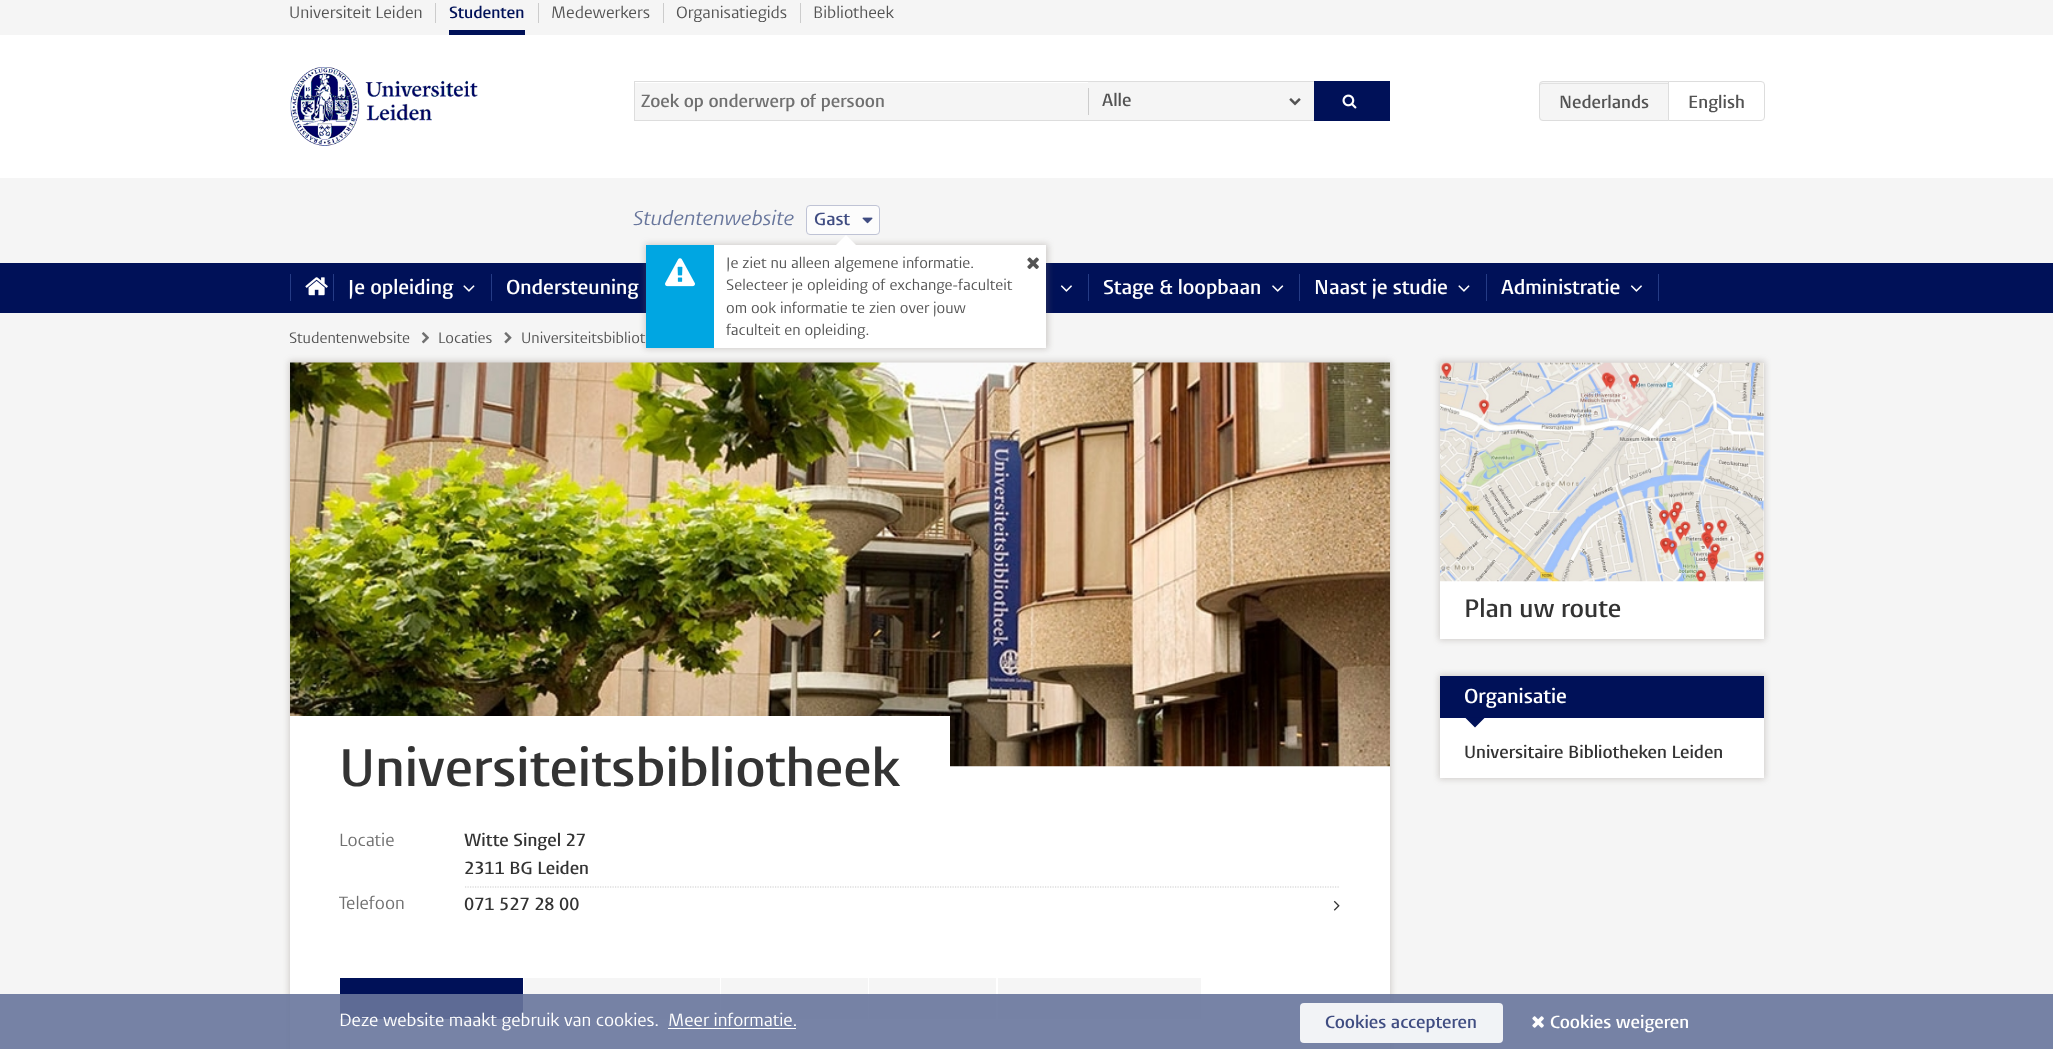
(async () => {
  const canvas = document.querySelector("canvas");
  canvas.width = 2053;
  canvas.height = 1049;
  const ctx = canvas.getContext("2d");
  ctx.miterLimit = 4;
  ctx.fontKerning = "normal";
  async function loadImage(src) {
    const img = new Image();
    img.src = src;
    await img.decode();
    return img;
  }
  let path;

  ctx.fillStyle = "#f5f5f5";
  ctx.fillRect(0, 0, 2053, 1049);
  for (const [x, y, w, h, color] of [
    [0, 35, 2053, 143, "#ffffff"],
    [435, 3, 1, 20, "#cccccc"],
    [538, 3, 1, 20, "#cccccc"],
    [449, 30, 76, 5, "#001158"],
    [663, 3, 1, 20, "#cccccc"],
    [800, 3, 1, 20, "#cccccc"],
  ]) {
    ctx.fillStyle = color;
    ctx.fillRect(x, y, w, h);
  }
  ctx.drawImage(await loadImage("img/1.png"), 290, 67, 188, 79);
  for (const [x, y, w, h, color] of [
    [635, 83, 453, 37, "#f5f5f5"],
    [634, 81, 680, 1, "#dddddd"],
    [634, 120, 680, 1, "#dddddd"],
    [634, 81, 1, 40, "#dddddd"],
    [1088, 82, 226, 38, "#f5f5f5"],
    [1088, 88, 1, 27, "#cccccc"],
  ]) {
    ctx.fillStyle = color;
    ctx.fillRect(x, y, w, h);
  }
  ctx.drawImage(await loadImage("img/2.png"), 1289, 98, 12, 8);
  ctx.fillStyle = "#001158";
  ctx.fillRect(1314, 81, 76, 40);
  ctx.drawImage(await loadImage("img/3.png"), 1342, 94, 15, 15);
  ctx.fillStyle = "#f5f5f5";
  ctx.beginPath();
  ctx.roundRect(1539, 81, 130, 40, [4, 0, 0, 4]);
  ctx.fill();
  ctx.fillStyle = "#e1e1e1";
  path = new Path2D("M1542 84H1668V83H1542C1541 83 1540 84 1540 86C1540 85 1541 84 1542 84Z");
  ctx.fill(path);
  ctx.beginPath();
  ctx.roundRect(1539.5, 81.5, 129, 39, [3.5, 0, 0, 3.5]);
  ctx.strokeStyle = "#dddddd";
  ctx.stroke();
  ctx.fillStyle = "#ffffff";
  ctx.beginPath();
  ctx.roundRect(1668.5, 81.5, 96, 39, [0, 3.5, 3.5, 0]);
  ctx.fill();
  ctx.stroke();
  ctx.fillStyle = "#fcfcfc";
  ctx.beginPath();
  ctx.roundRect(806.5, 205.5, 73, 29, 3.5);
  ctx.fill();
  ctx.strokeStyle = "#bfc3d5";
  ctx.stroke();
  ctx.drawImage(await loadImage("img/4.png"), 862, 217, 11, 7);
  ctx.fillStyle = "#001158";
  ctx.fillRect(0, 263, 2053, 50);
  ctx.fillStyle = "rgba(120, 110, 100, 0.3)";
  ctx.filter = "blur(3px)";
  ctx.beginPath();
  ctx.rect(645, 244, 403, 105);
  ctx.fill();
  ctx.filter = "none";
  ctx.fillStyle = "#ffffff";
  ctx.fillRect(714, 245, 332, 103);
  path = new Path2D("M856 245H836L846 235Z");
  ctx.fill(path);
  ctx.fillStyle = "#00a6e2";
  ctx.fillRect(646, 245, 68, 103);
  ctx.drawImage(await loadImage("img/5.png"), 665, 258, 30, 29);
  ctx.drawImage(await loadImage("img/6.png"), 1027, 257, 12, 12);
  ctx.fillStyle = "#253b85";
  ctx.fillRect(290, 274, 1, 27);
  ctx.drawImage(await loadImage("img/7.png"), 305, 277, 23, 19);
  ctx.fillRect(333, 274, 1, 27);
  ctx.drawImage(await loadImage("img/8.png"), 463, 285, 12, 7);
  ctx.fillRect(491, 274, 1, 27);
  ctx.drawImage(await loadImage("img/9.png"), 1060, 285, 12, 7);
  ctx.fillRect(1088, 274, 1, 27);
  ctx.drawImage(await loadImage("img/10.png"), 1272, 285, 12, 7);
  ctx.fillRect(1299, 274, 1, 27);
  ctx.drawImage(await loadImage("img/8.png"), 1458, 285, 12, 7);
  ctx.fillRect(1658, 274, 1, 27);
  ctx.fillRect(1486, 274, 1, 27);
  ctx.drawImage(await loadImage("img/9.png"), 1630, 285, 12, 7);
  ctx.drawImage(await loadImage("img/11.png"), 421, 332, 8, 12);
  ctx.drawImage(await loadImage("img/12.png"), 504, 332, 8, 12);
  ctx.fillStyle = "rgba(120, 110, 100, 0.3)";
  ctx.filter = "blur(3px)";
  ctx.beginPath();
  ctx.rect(1439, 361, 326, 279);
  ctx.fill();
  ctx.filter = "none";
  ctx.fillStyle = "#ffffff";
  ctx.fillRect(1440, 363, 324, 276);
  ctx.drawImage(await loadImage("img/13.png"), 1440, 362, 324, 220);
  ctx.fillStyle = "rgba(120, 110, 100, 0.3)";
  ctx.filter = "blur(3px)";
  ctx.beginPath();
  ctx.rect(1439, 675, 326, 104);
  ctx.fill();
  ctx.filter = "none";
  ctx.fillStyle = "#ffffff";
  ctx.fillRect(1440, 718, 324, 60);
  ctx.fillStyle = "#001158";
  ctx.fillRect(1440, 676, 324, 42);
  path = new Path2D("M1465 717.5H1485L1475 727.5Z");
  ctx.fill(path);
  ctx.fillStyle = "rgba(120, 110, 100, 0.3)";
  ctx.filter = "blur(3px)";
  ctx.beginPath();
  ctx.rect(289, 361, 1102, 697);
  ctx.fill();
  ctx.filter = "none";
  ctx.fillStyle = "#ffffff";
  ctx.fillRect(290, 766, 1100, 283);
  ctx.drawImage(await loadImage("img/14.png"), 290, 362, 1100, 405);
  ctx.fillRect(290, 716, 660, 51);
  path = new Path2D("M465 887H1340");
  ctx.strokeStyle = "#cccccc";
  ctx.lineWidth = 1.2;
  ctx.setLineDash([1.25, 1.25]);
  ctx.stroke(path);
  ctx.drawImage(await loadImage("img/15.png"), 1333, 900, 7, 11);
  for (const [x, y, w, h, color] of [
    [340, 978, 183, 41, "#001158"],
    [524, 978, 196, 41, "#f5f5f5"],
    [721, 978, 147, 41, "#f5f5f5"],
    [869, 978, 127, 41, "#f5f5f5"],
    [998, 978, 203, 41, "#f5f5f5"],
    [0, 994, 2053, 55, "rgba(104, 118, 156, 0.9)"],
    [668, 1028, 128, 1, "#ffffff"],
  ]) {
    ctx.fillStyle = color;
    ctx.fillRect(x, y, w, h);
  }
  ctx.fillStyle = "rgba(255, 255, 255, 0.9)";
  ctx.beginPath();
  ctx.roundRect(1300, 1003, 203, 40, 4);
  ctx.fill();
  ctx.drawImage(await loadImage("img/16.png"), 1532, 1016, 12, 12);
  ctx.font = "16.25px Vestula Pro";
  ctx.fillStyle = "#535353";
  ctx.fillText("Universiteit Leiden", 289, 18);
  ctx.font = "600 16.25px Vestula Pro";
  ctx.fillStyle = "#001158";
  ctx.fillText("Studenten", 449, 18);
  ctx.font = "16.25px Vestula Pro";
  ctx.fillStyle = "#535353";
  for (const [text, x, y] of [
    ["Medewerkers", 551, 18],
    ["Organisatiegids", 676, 18],
    ["Bibliotheek", 813, 18],
  ]) {
    ctx.fillText(text, x, y);
  }
  ctx.font = "600 17.5px Vestula Pro";
  ctx.fillStyle = "#707070";
  ctx.fillText("Zoek op onderwerp of persoon", 641, 107);
  ctx.fillStyle = "#535353";
  for (const [text, x, y] of [
    ["Alle", 1102, 106],
    ["Nederlands", 1559, 108],
    ["English", 1688, 108],
  ]) {
    ctx.fillText(text, x, y);
  }
  ctx.font = "italic 20px Vestula Pro";
  ctx.fillStyle = "#68769c";
  ctx.fillText("Studentenwebsite", 633, 225);
  ctx.font = "600 17.5px Vestula Pro";
  ctx.fillStyle = "#404d82";
  ctx.fillText("Gast", 814, 225);
  ctx.font = "15px Vestula Pro";
  ctx.fillStyle = "#535353";
  for (const [text, x, y] of [
    ["Je ziet nu alleen algemene informatie.", 726, 268],
    ["Selecteer je opleiding of exchange-faculteit", 726, 290],
    ["om ook informatie te zien over jouw", 726, 313],
    ["faculteit en opleiding.", 726, 335],
  ]) {
    ctx.fillText(text, x, y);
  }
  ctx.font = "600 20px Vestula Pro";
  ctx.fillStyle = "#ffffff";
  for (const [text, x, y] of [
    ["Je opleiding", 348, 294],
    ["Ondersteuning", 506, 294],
    ["Stage & loopbaan", 1103, 294],
    ["Naast je studie", 1314, 294],
    ["Administratie", 1501, 294],
  ]) {
    ctx.fillText(text, x, y);
  }
  ctx.font = "15px Vestula Pro";
  ctx.fillStyle = "#535353";
  for (const [text, x, y] of [
    ["Studentenwebsite", 289, 343],
    ["Locaties", 438, 343],
    ["Universiteitsbibliot", 521, 343],
  ]) {
    ctx.fillText(text, x, y);
  }
  ctx.font = "600 25px Vestula Pro";
  ctx.fillStyle = "#333333";
  ctx.fillText("Plan uw route", 1464, 617);
  ctx.font = "600 20px Vestula Pro";
  ctx.fillStyle = "#ffffff";
  ctx.fillText("Organisatie", 1464, 703);
  ctx.font = "600 17.5px Vestula Pro";
  ctx.fillStyle = "#333333";
  ctx.fillText("Universitaire Bibliotheken Leiden", 1464, 758);
  ctx.font = "600 52.5px Vestula Pro";
  ctx.fillText("Universiteitsbibliotheek", 339, 786);
  ctx.font = "17.5px Vestula Pro";
  ctx.fillStyle = "#707070";
  ctx.fillText("Locatie", 339, 846);
  ctx.font = "600 17.5px Vestula Pro";
  ctx.fillStyle = "#333333";
  ctx.fillText("Witte Singel 27", 464, 846);
  ctx.fillText("2311 BG Leiden", 464, 874);
  ctx.font = "17.5px Vestula Pro";
  ctx.fillStyle = "#707070";
  ctx.fillText("Telefoon", 339, 909);
  ctx.font = "600 17.5px Vestula Pro";
  ctx.fillStyle = "#333333";
  ctx.fillText("071 527 28 00", 464, 910);
  ctx.font = "17.5px Vestula Pro";
  ctx.fillStyle = "#ffffff";
  ctx.fillText("Deze website maakt gebruik van cookies.", 339, 1026);
  ctx.fillText("Meer informatie.", 668, 1026);
  ctx.font = "600 17.5px Vestula Pro";
  ctx.fillStyle = "#404d82";
  ctx.fillText("Cookies accepteren", 1325, 1028);
  ctx.fillStyle = "#ffffff";
  ctx.fillText("Cookies weigeren", 1550, 1028);
})();
